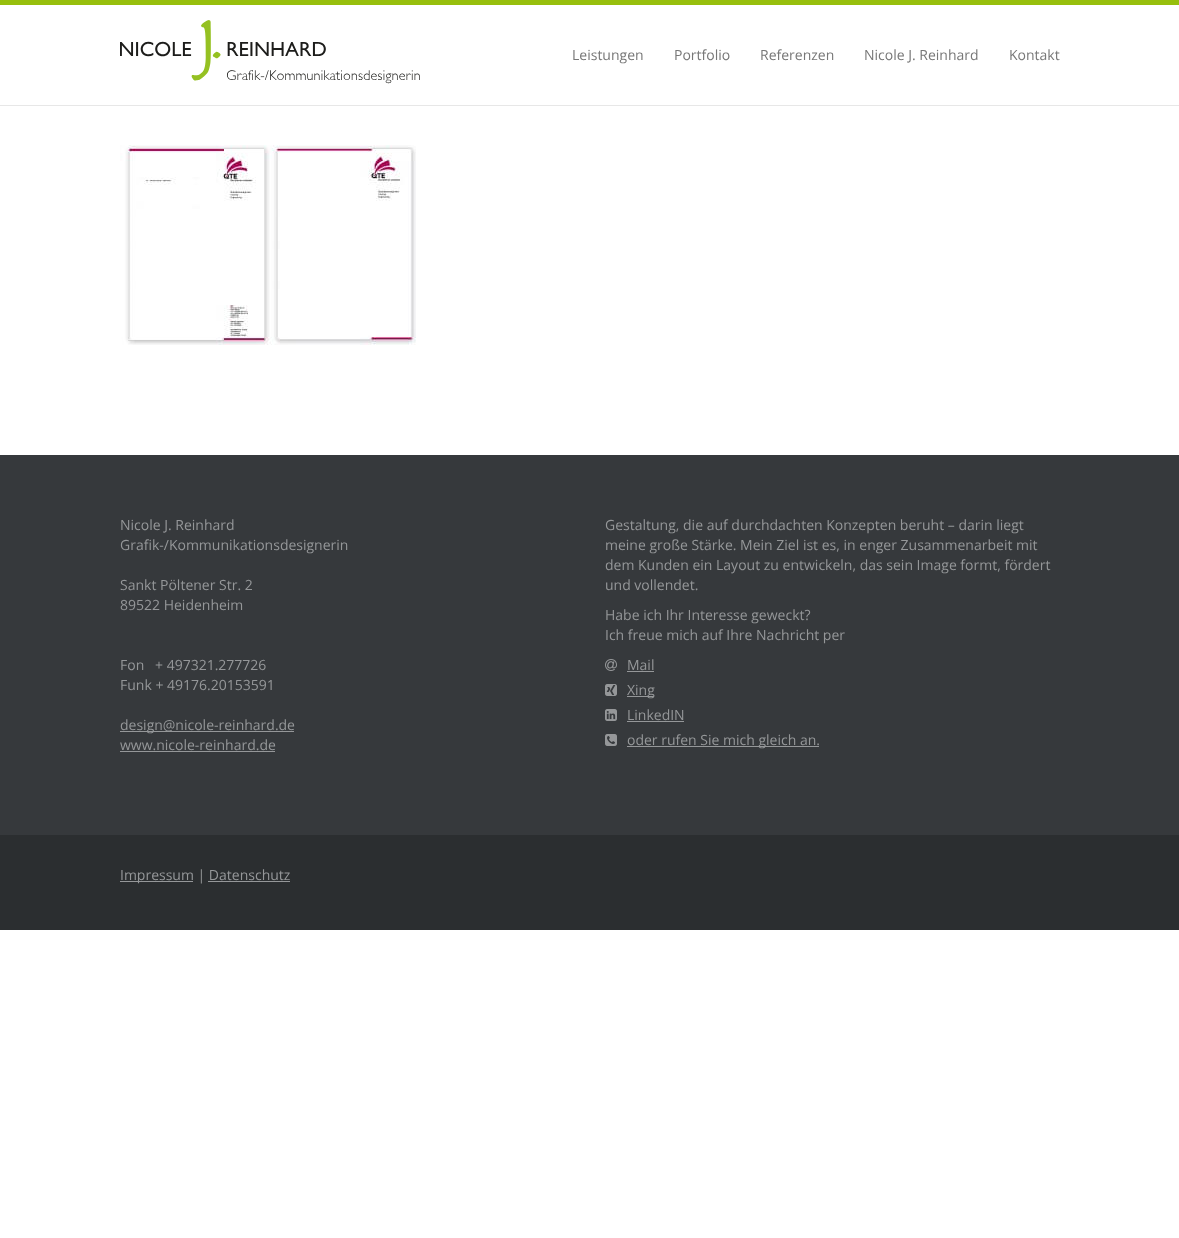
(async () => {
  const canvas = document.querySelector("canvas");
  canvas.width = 1179;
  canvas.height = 1238;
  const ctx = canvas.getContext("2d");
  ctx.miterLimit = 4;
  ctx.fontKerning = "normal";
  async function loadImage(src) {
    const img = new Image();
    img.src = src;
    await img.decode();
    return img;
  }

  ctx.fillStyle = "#ffffff";
  ctx.fillRect(0, 0, 1179, 1238);
  ctx.fillStyle = "#97bf0d";
  ctx.fillRect(0, 0, 1179, 5);
  ctx.fillStyle = "#e7e7e7";
  ctx.fillRect(0, 105, 1179, 1);
  ctx.drawImage(await loadImage("img/1.png"), 120, 20, 300, 64);
  ctx.drawImage(await loadImage("img/2.png"), 120, 145, 296, 200);
  for (const [x, y, w, h, color] of [
    [0, 455, 1179, 380, "#36393c"],
    [120, 731, 174, 1, "#959799"],
    [120, 751, 155, 1, "#959799"],
  ]) {
    ctx.fillStyle = color;
    ctx.fillRect(x, y, w, h);
  }
  ctx.drawImage(await loadImage("img/3.png"), 605, 659, 12, 12);
  ctx.fillRect(627, 671, 27, 1);
  ctx.drawImage(await loadImage("img/4.png"), 605, 684, 12, 12);
  ctx.fillRect(627, 696, 27, 1);
  ctx.drawImage(await loadImage("img/5.png"), 605, 709, 12, 12);
  ctx.fillRect(627, 721, 57, 1);
  ctx.drawImage(await loadImage("img/6.png"), 605, 734, 12, 12);
  for (const [x, y, w, h, color] of [
    [627, 746, 192, 1, "#959799"],
    [0, 835, 1179, 95, "#2b2e30"],
    [120, 881, 73, 1, "#959799"],
    [208, 881, 82, 1, "#959799"],
  ]) {
    ctx.fillStyle = color;
    ctx.fillRect(x, y, w, h);
  }
  ctx.font = "14px Open Sans";
  ctx.fillStyle = "#777777";
  for (const [text, x, y] of [
    ["Leistungen", 572, 60],
    ["Portfolio", 674, 60],
    ["Referenzen", 760, 60],
    ["Nicole J. Reinhard", 864, 60],
    ["Kontakt", 1009, 60],
  ]) {
    ctx.fillText(text, x, y);
  }
  ctx.fillStyle = "#959799";
  for (const [text, x, y] of [
    ["Nicole J. Reinhard", 120, 530],
    ["Grafik-/Kommunikationsdesignerin", 120, 550],
    ["Sankt Pöltener Str. 2", 120, 590],
    ["89522 Heidenheim", 120, 610],
    ["Fon", 120, 670],
    ["+ 497321.277726", 155, 670],
    ["Funk + 49176.20153591", 120, 690],
    ["design@nicole-reinhard.de", 120, 730],
    ["www.nicole-reinhard.de", 120, 750],
    ["Gestaltung, die auf durchdachten Konzepten beruht – darin liegt", 605, 530],
    ["meine große Stärke. Mein Ziel ist es, in enger Zusammenarbeit mit", 605, 550],
    ["dem Kunden ein Layout zu entwickeln, das sein Image formt, fördert", 605, 570],
    ["und vollendet.", 605, 590],
    ["Habe ich Ihr Interesse geweckt?", 605, 620],
    ["Ich freue mich auf Ihre Nachricht per", 605, 640],
    ["Mail", 627, 670],
    ["Xing", 627, 695],
    ["LinkedIN", 627, 720],
    ["oder rufen Sie mich gleich an.", 627, 745],
    ["Impressum | Datenschutz", 120, 880],
  ]) {
    ctx.fillText(text, x, y);
  }
})();
